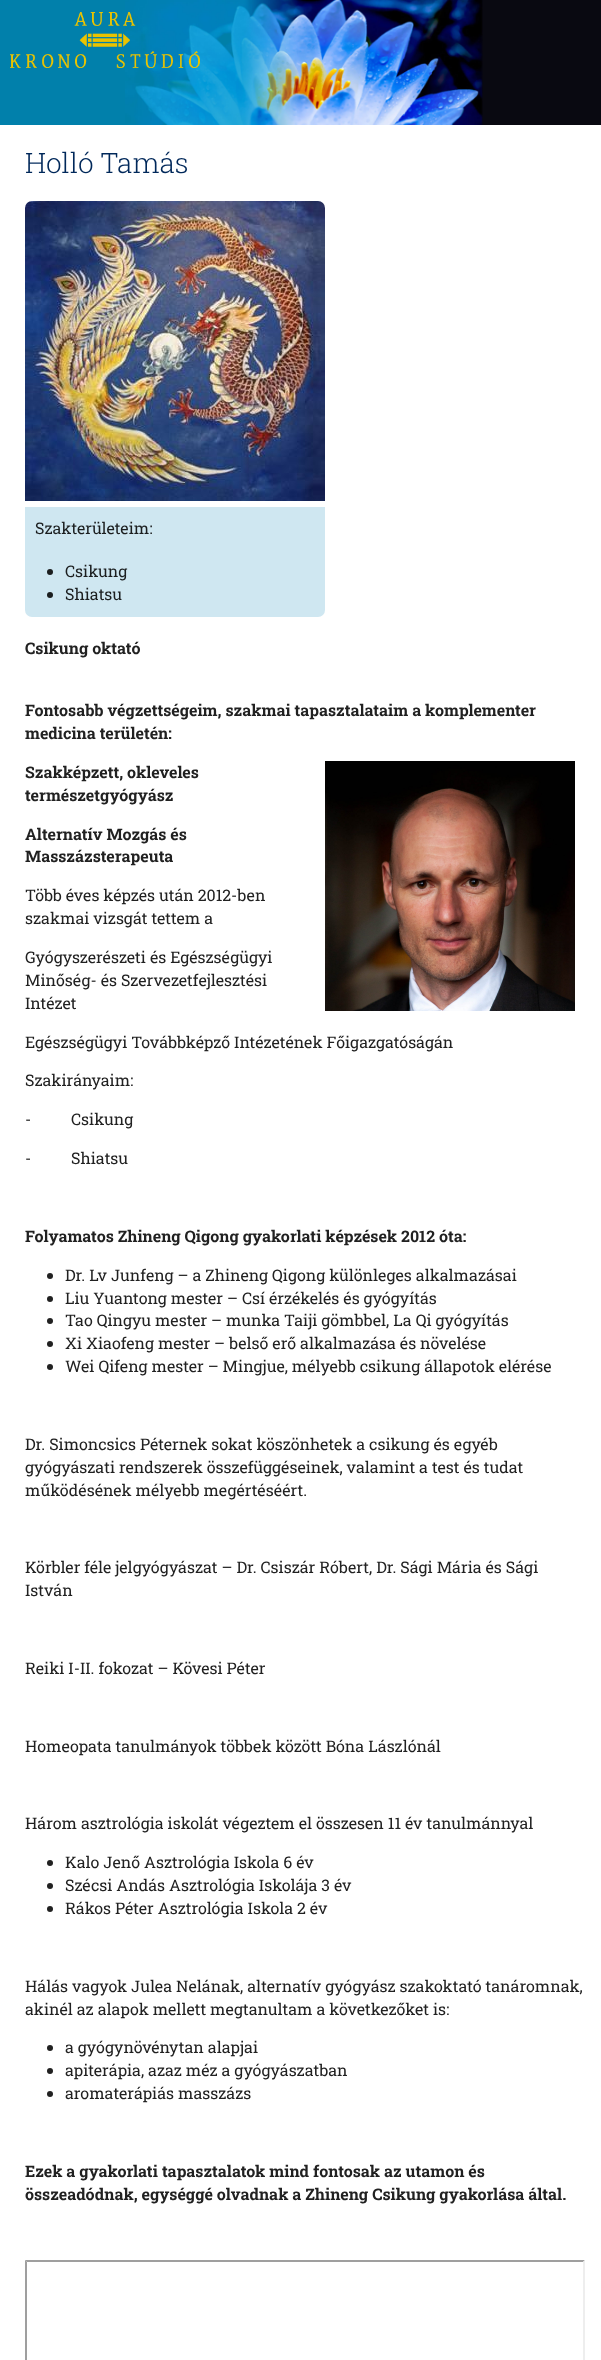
(async () => {
  const canvas = document.querySelector("canvas");
  canvas.width = 601;
  canvas.height = 2360;
  const ctx = canvas.getContext("2d");
  ctx.miterLimit = 4;
  ctx.fontKerning = "normal";
  async function loadImage(src) {
    const img = new Image();
    img.src = src;
    await img.decode();
    return img;
  }
  let gradient, path;

  ctx.fillStyle = "#ffffff";
  ctx.fillRect(0, 0, 601, 2360);
  gradient = ctx.createLinearGradient(0, 63, 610, 62);
  gradient.addColorStop(0, "#0180ab");
  gradient.addColorStop(0.51, "#0180ab");
  gradient.addColorStop(0.67, "#090911");
  gradient.addColorStop(1, "#090911");
  ctx.fillStyle = gradient;
  ctx.fillRect(0, 0, 601, 125);
  ctx.drawImage(await loadImage("img/1.png"), 125, 0, 358, 125);
  ctx.drawImage(await loadImage("img/2.png"), 10, 12, 190, 56);
  ctx.drawImage(await loadImage("img/3.png"), 25, 201, 300, 300);
  ctx.fillStyle = "#cfe7f1";
  ctx.beginPath();
  ctx.roundRect(25, 507, 300, 110, [0, 0, 7, 7]);
  ctx.fill();
  ctx.fillStyle = "#1b1e1f";
  ctx.beginPath();
  ctx.arc(50, 572, 3, 0, Math.PI * 2);
  ctx.fill();
  ctx.beginPath();
  ctx.arc(50, 595, 3, 0, Math.PI * 2);
  ctx.fill();
  ctx.drawImage(await loadImage("img/4.png"), 325, 761, 250, 250);
  ctx.fillStyle = "#212121";
  ctx.beginPath();
  ctx.arc(50, 1276, 3, 0, Math.PI * 2);
  ctx.fill();
  ctx.beginPath();
  ctx.arc(50, 1299, 3, 0, Math.PI * 2);
  ctx.fill();
  ctx.beginPath();
  ctx.arc(50, 1321, 3, 0, Math.PI * 2);
  ctx.fill();
  ctx.beginPath();
  ctx.arc(50, 1344, 3, 0, Math.PI * 2);
  ctx.fill();
  ctx.beginPath();
  ctx.arc(50, 1367, 3, 0, Math.PI * 2);
  ctx.fill();
  ctx.beginPath();
  ctx.arc(50, 1863, 3, 0, Math.PI * 2);
  ctx.fill();
  ctx.beginPath();
  ctx.arc(50, 1886, 3, 0, Math.PI * 2);
  ctx.fill();
  ctx.beginPath();
  ctx.arc(50, 1909, 3, 0, Math.PI * 2);
  ctx.fill();
  ctx.beginPath();
  ctx.arc(50, 2048, 3, 0, Math.PI * 2);
  ctx.fill();
  ctx.beginPath();
  ctx.arc(50, 2071, 3, 0, Math.PI * 2);
  ctx.fill();
  ctx.beginPath();
  ctx.arc(50, 2094, 3, 0, Math.PI * 2);
  ctx.fill();
  ctx.fillStyle = "#9f9f9f";
  path = new Path2D("M25 2260H585L583 2262H27Z");
  ctx.fill(path);
  path = new Path2D("M25 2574V2260L27 2262V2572Z");
  ctx.fill(path);
  ctx.fillStyle = "#eeeeee";
  path = new Path2D("M585 2260V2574L583 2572V2262Z");
  ctx.fill(path);
  ctx.font = "300 28px Roboto Slab";
  ctx.fillStyle = "#00285a";
  ctx.fillText("Holló Tamás", 25, 173);
  ctx.font = "16px Roboto Slab";
  ctx.fillStyle = "#1b1e1f";
  for (const [text, x, y] of [
    ["Szakterületeim:", 35, 534],
    ["Csikung", 65, 577],
    ["Shiatsu", 65, 600],
  ]) {
    ctx.fillText(text, x, y);
  }
  ctx.font = "bold 16px Roboto Slab";
  ctx.fillStyle = "#212121";
  for (const [text, x, y] of [
    ["Csikung oktató", 25, 654],
    ["Fontosabb végzettségeim, szakmai tapasztalataim a komplementer", 25, 716],
    ["medicina területén:", 25, 739],
    ["Szakképzett, okleveles", 25, 778],
    ["természetgyógyász", 25, 801],
    ["Alternatív Mozgás és", 25, 840],
    ["Masszázsterapeuta", 25, 862],
  ]) {
    ctx.fillText(text, x, y);
  }
  ctx.font = "16px Roboto Slab";
  for (const [text, x, y] of [
    ["Több éves képzés után 2012-ben", 25, 901],
    ["szakmai vizsgát tettem a", 25, 924],
    ["Gyógyszerészeti és Egészségügyi", 25, 963],
    ["Minőség- és Szervezetfejlesztési", 25, 986],
    ["Intézet", 25, 1009],
    ["Egészségügyi Továbbképző Intézetének Főigazgatóságán", 25, 1048],
    ["Szakirányaim:", 25, 1086],
    ["-          Csikung", 25, 1125],
    ["-          Shiatsu", 25, 1164],
  ]) {
    ctx.fillText(text, x, y);
  }
  ctx.font = "bold 16px Roboto Slab";
  ctx.fillText("Folyamatos Zhineng Qigong gyakorlati képzések 2012 óta:", 25, 1242);
  ctx.font = "16px Roboto Slab";
  for (const [text, x, y] of [
    ["Dr. Lv Junfeng – a Zhineng Qigong különleges alkalmazásai", 65, 1281],
    ["Liu Yuantong mester – Csí érzékelés és gyógyítás", 65, 1304],
    ["Tao Qingyu mester – munka Taiji gömbbel, La Qi gyógyítás", 65, 1326],
    ["Xi Xiaofeng mester – belső erő alkalmazása és növelése", 65, 1349],
    ["Wei Qifeng mester – Mingjue, mélyebb csikung állapotok elérése", 65, 1372],
    ["Dr. Simoncsics Péternek sokat köszönhetek a csikung és egyéb", 25, 1450],
    ["gyógyászati rendszerek összefüggéseinek, valamint a test és tudat", 25, 1473],
    ["működésének mélyebb megértéséért.", 25, 1496],
    ["Körbler féle jelgyógyászat – Dr. Csiszár Róbert, Dr. Sági Mária és Sági", 25, 1573],
    ["István", 25, 1596],
    ["Reiki I-II. fokozat – Kövesi Péter", 25, 1674],
    ["Homeopata tanulmányok többek között Bóna Lászlónál", 25, 1752],
    ["Három asztrológia iskolát végeztem el összesen 11 év tanulmánnyal", 25, 1829],
    ["Kalo Jenő Asztrológia Iskola 6 év", 65, 1868],
    ["Szécsi Andás Asztrológia Iskolája 3 év", 65, 1891],
    ["Rákos Péter Asztrológia Iskola 2 év", 65, 1914],
    ["Hálás vagyok Julea Nelának, alternatív gyógyász szakoktató tanáromnak,", 25, 1992],
    ["akinél az alapok mellett megtanultam a következőket is:", 25, 2015],
    ["a gyógynövénytan alapjai", 65, 2053],
    ["apiterápia, azaz méz a gyógyászatban", 65, 2076],
    ["aromaterápiás masszázs", 65, 2099],
  ]) {
    ctx.fillText(text, x, y);
  }
  ctx.font = "bold 16px Roboto Slab";
  ctx.fillText("Ezek a gyakorlati tapasztalatok mind fontosak az utamon és", 25, 2177);
  ctx.fillText("összeadódnak, egységgé olvadnak a Zhineng Csikung gyakorlása által.", 25, 2200);
})();
